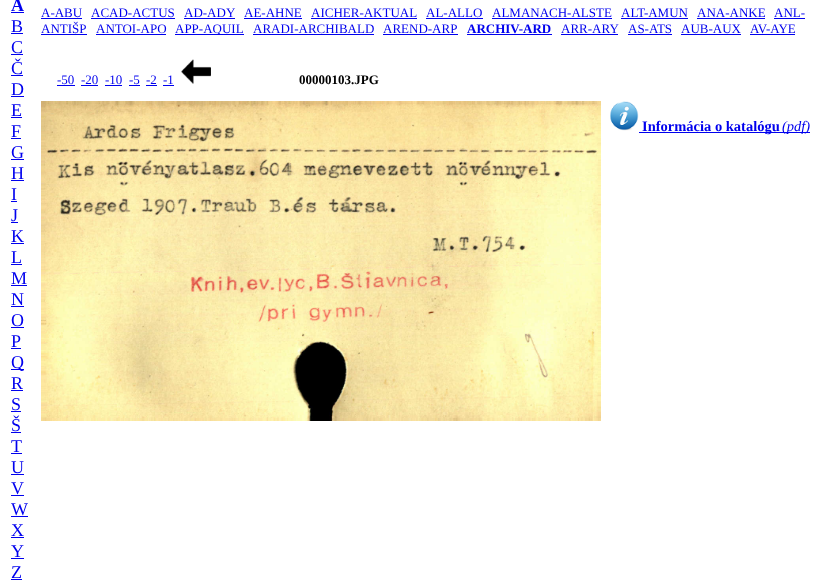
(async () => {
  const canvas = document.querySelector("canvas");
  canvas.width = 822;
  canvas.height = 585;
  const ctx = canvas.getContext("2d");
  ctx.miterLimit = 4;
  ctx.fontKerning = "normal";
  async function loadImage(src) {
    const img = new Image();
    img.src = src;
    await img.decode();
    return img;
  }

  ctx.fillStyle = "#ffffff";
  ctx.fillRect(0, 0, 822, 585);
  for (const [x, y, w, h, color] of [
    [11, 12, 13, 1, "#0000ee"],
    [11, 33, 12, 1, "#0000ee"],
    [11, 54, 12, 1, "#0000ee"],
    [11, 75, 12, 1, "#0000ee"],
    [11, 96, 13, 1, "#0000ee"],
    [11, 117, 11, 1, "#0000ee"],
    [11, 138, 10, 1, "#0000ee"],
    [11, 159, 13, 1, "#0000ee"],
    [11, 180, 13, 1, "#0000ee"],
    [11, 201, 6, 1, "#0000ee"],
    [11, 222, 7, 1, "#0000ee"],
    [11, 243, 13, 1, "#0000ee"],
    [11, 264, 11, 1, "#0000ee"],
    [11, 285, 16, 1, "#0000ee"],
    [11, 306, 13, 1, "#0000ee"],
    [11, 327, 13, 1, "#0000ee"],
    [11, 348, 10, 1, "#0000ee"],
    [11, 369, 13, 1, "#0000ee"],
    [11, 390, 12, 1, "#0000ee"],
    [11, 411, 10, 1, "#0000ee"],
    [11, 432, 10, 1, "#0000ee"],
    [11, 453, 11, 1, "#0000ee"],
    [11, 474, 13, 1, "#0000ee"],
    [11, 495, 13, 1, "#0000ee"],
    [11, 516, 17, 1, "#0000ee"],
    [11, 537, 13, 1, "#0000ee"],
    [11, 558, 13, 1, "#0000ee"],
    [11, 579, 11, 1, "#0000ee"],
    [41, 18, 41, 1, "#0000ee"],
    [91, 18, 84, 1, "#0000ee"],
    [184, 18, 51, 1, "#0000ee"],
    [244, 18, 58, 1, "#0000ee"],
    [311, 18, 106, 1, "#0000ee"],
    [426, 18, 57, 1, "#0000ee"],
    [492, 18, 120, 1, "#0000ee"],
    [621, 18, 67, 1, "#0000ee"],
    [697, 18, 68, 1, "#0000ee"],
    [774, 18, 31, 1, "#0000ee"],
    [41, 34, 46, 1, "#0000ee"],
    [96, 34, 70, 1, "#0000ee"],
    [175, 34, 69, 1, "#0000ee"],
    [253, 34, 121, 1, "#0000ee"],
    [383, 34, 75, 1, "#0000ee"],
    [467, 34, 85, 1, "#0000ee"],
    [561, 34, 57, 1, "#0000ee"],
    [628, 34, 44, 1, "#0000ee"],
    [681, 34, 60, 1, "#0000ee"],
    [750, 34, 45, 1, "#0000ee"],
    [57, 85, 18, 1, "#0000ee"],
    [81, 85, 17, 1, "#0000ee"],
    [105, 85, 17, 1, "#0000ee"],
    [129, 85, 11, 1, "#0000ee"],
    [146, 85, 11, 1, "#0000ee"],
    [163, 85, 11, 1, "#0000ee"],
  ]) {
    ctx.fillStyle = color;
    ctx.fillRect(x, y, w, h);
  }
  ctx.drawImage(await loadImage("img/1.png"), 181, 59, 30, 25);
  ctx.drawImage(await loadImage("img/2.png"), 41, 101, 560, 320);
  ctx.drawImage(await loadImage("img/3.png"), 610, 101, 29, 30);
  ctx.fillRect(639, 132, 171, 1);
  ctx.font = "bold 18px Liberation Serif";
  ctx.fillText("A", 11, 11);
  ctx.font = "18px Liberation Serif";
  for (const [text, x, y] of [
    ["B", 11, 32],
    ["C", 11, 53],
    ["Č", 11, 74],
    ["D", 11, 95],
    ["E", 11, 116],
    ["F", 11, 137],
    ["G", 11, 158],
    ["H", 11, 179],
    ["I", 11, 200],
    ["J", 11, 221],
    ["K", 11, 242],
    ["L", 11, 263],
    ["M", 11, 284],
    ["N", 11, 305],
    ["O", 11, 326],
    ["P", 11, 347],
    ["Q", 11, 368],
    ["R", 11, 389],
    ["S", 11, 410],
    ["Š", 11, 431],
    ["T", 11, 452],
    ["U", 11, 473],
    ["V", 11, 494],
    ["W", 11, 515],
    ["X", 11, 536],
    ["Y", 11, 557],
    ["Z", 11, 578],
  ]) {
    ctx.fillText(text, x, y);
  }
  ctx.font = "13px Liberation Serif";
  for (const [text, x, y] of [
    ["A-ABU", 41, 17],
    ["ACAD-ACTUS", 91, 17],
    ["AD-ADY", 184, 17],
    ["AE-AHNE", 244, 17],
    ["AICHER-AKTUAL", 311, 17],
    ["AL-ALLO", 426, 17],
    ["ALMANACH-ALSTE", 492, 17],
    ["ALT-AMUN", 621, 17],
    ["ANA-ANKE", 697, 17],
    ["ANL-", 774, 17],
    ["ANTIŠP", 41, 33],
    ["ANTOI-APO", 96, 33],
    ["APP-AQUIL", 175, 33],
    ["ARADI-ARCHIBALD", 253, 33],
    ["AREND-ARP", 383, 33],
  ]) {
    ctx.fillText(text, x, y);
  }
  ctx.font = "bold 13px Liberation Serif";
  ctx.fillText("ARCHIV-ARD", 467, 33);
  ctx.font = "13px Liberation Serif";
  for (const [text, x, y] of [
    ["ARR-ARY", 561, 33],
    ["AS-ATS", 628, 33],
    ["AUB-AUX", 681, 33],
    ["AV-AYE", 750, 33],
    ["-50", 57, 84],
    ["-20", 81, 84],
    ["-10", 105, 84],
    ["-5", 129, 84],
    ["-2", 146, 84],
    ["-1", 163, 84],
  ]) {
    ctx.fillText(text, x, y);
  }
  ctx.font = "bold 13px Liberation Serif";
  ctx.fillStyle = "#000000";
  ctx.fillText("00000103.JPG", 299, 84);
  ctx.font = "bold 14.5px Liberation Serif";
  ctx.fillStyle = "#0000ee";
  ctx.fillText("Informácia o katalógu", 642, 131);
  ctx.font = "italic 14.5px Liberation Serif";
  ctx.fillText("(pdf)", 782, 131);
})();
